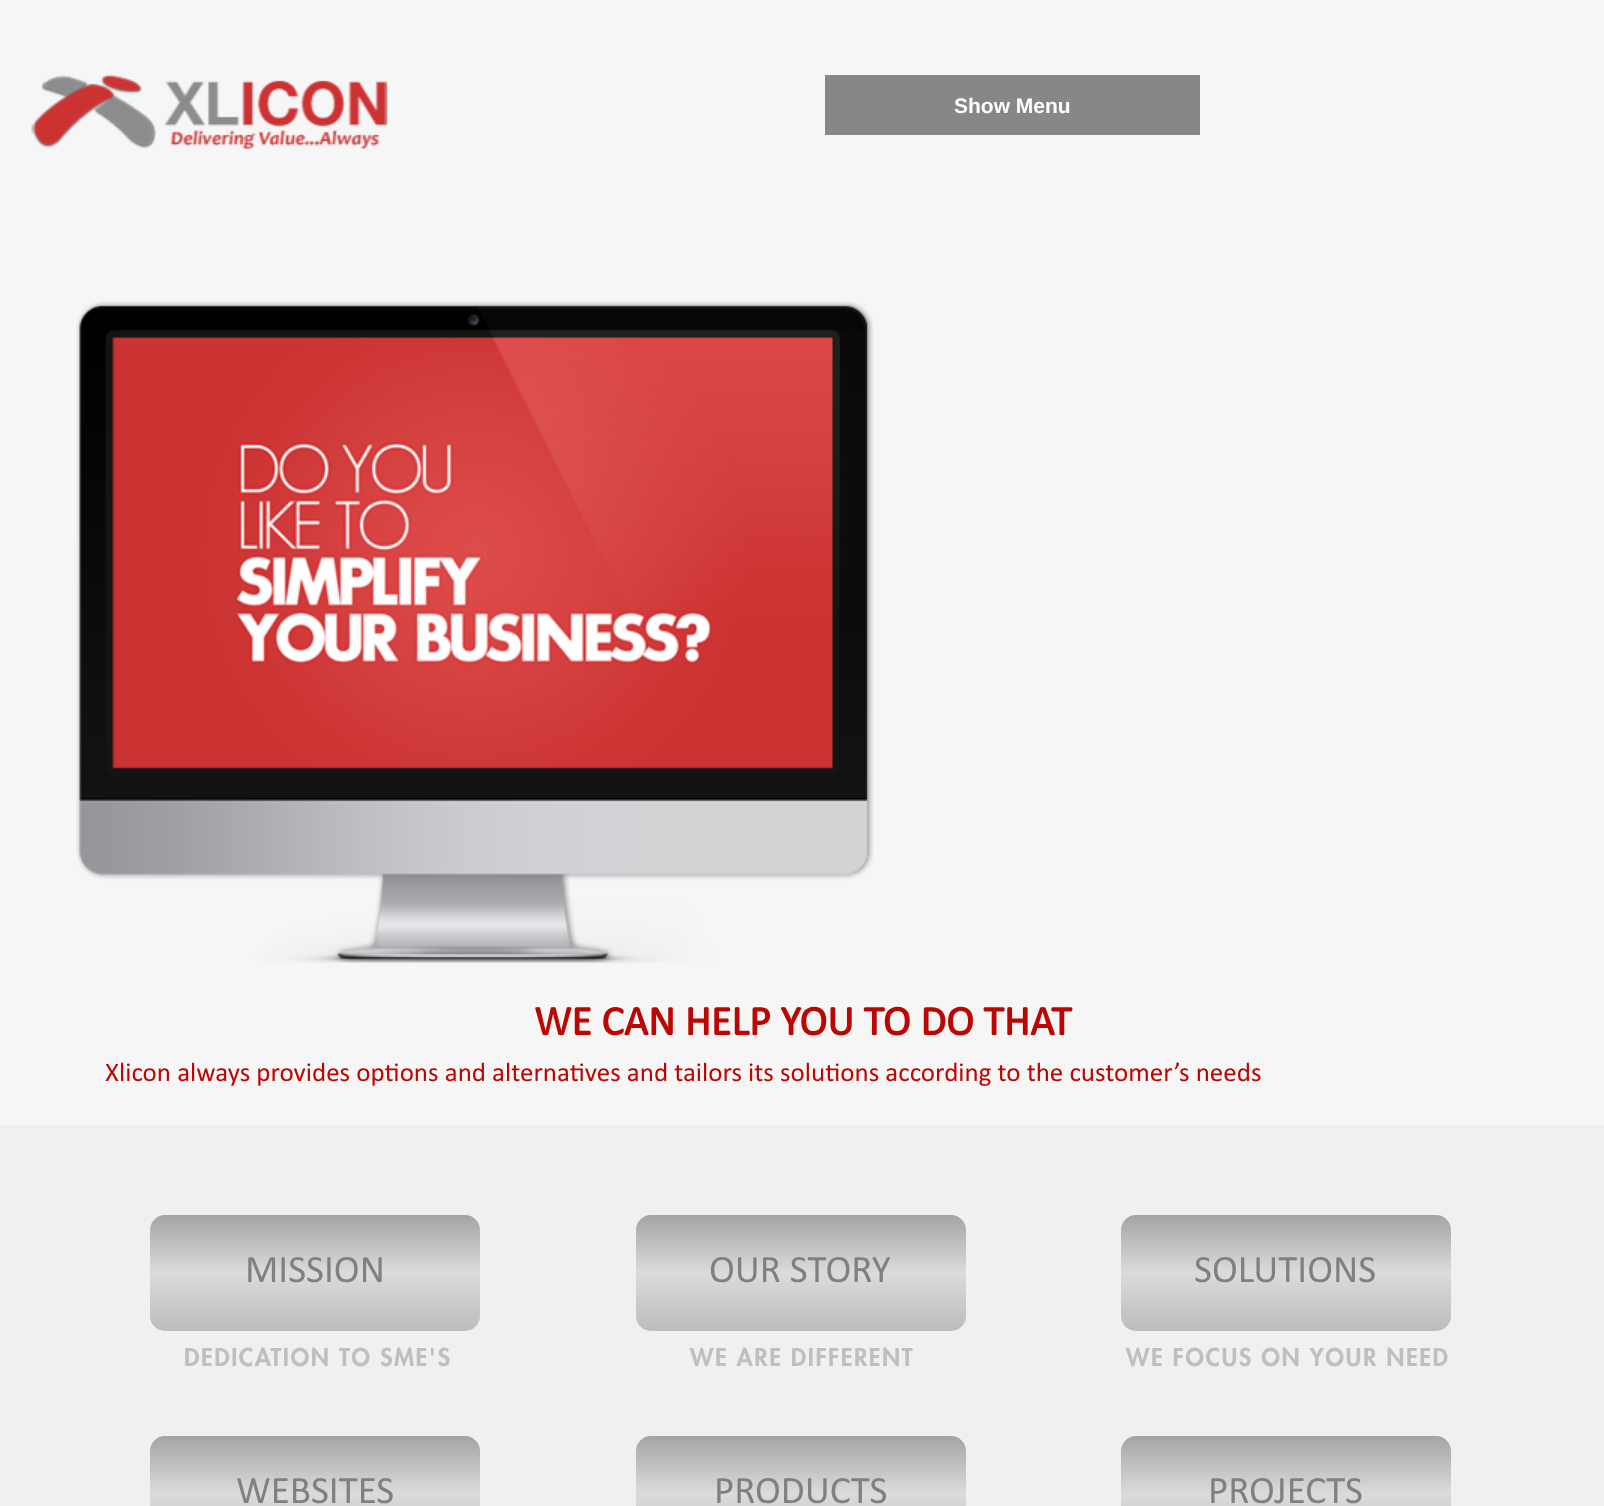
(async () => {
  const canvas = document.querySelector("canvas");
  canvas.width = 1604;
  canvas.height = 1506;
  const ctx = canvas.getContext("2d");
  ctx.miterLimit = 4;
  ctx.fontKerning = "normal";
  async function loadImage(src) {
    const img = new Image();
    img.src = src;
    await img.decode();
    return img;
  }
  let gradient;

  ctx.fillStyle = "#f0f0f0";
  ctx.fillRect(0, 0, 1604, 1506);
  ctx.fillStyle = "#f6f6f6";
  ctx.fillRect(0, 0, 1604, 1125);
  ctx.drawImage(await loadImage("img/1.png"), 31, 74, 357, 75);
  ctx.fillStyle = "#878787";
  ctx.fillRect(825, 75, 375, 60);
  ctx.drawImage(await loadImage("img/2.png"), 76, 301, 798, 662);
  gradient = ctx.createLinearGradient(315, 1215, 315, 1331);
  gradient.addColorStop(0, "#a4a4a4");
  gradient.addColorStop(0.5, "#dbdbdb");
  gradient.addColorStop(1, "#bcbcbc");
  ctx.fillStyle = gradient;
  ctx.beginPath();
  ctx.roundRect(150, 1215, 330, 116, 15);
  ctx.fill();
  gradient = ctx.createLinearGradient(801, 1215, 801, 1331);
  gradient.addColorStop(0, "#a4a4a4");
  gradient.addColorStop(0.5, "#dbdbdb");
  gradient.addColorStop(1, "#bcbcbc");
  ctx.fillStyle = gradient;
  ctx.beginPath();
  ctx.roundRect(636, 1215, 330, 116, 15);
  ctx.fill();
  gradient = ctx.createLinearGradient(1286, 1215, 1286, 1331);
  gradient.addColorStop(0, "#a4a4a4");
  gradient.addColorStop(0.5, "#dbdbdb");
  gradient.addColorStop(1, "#bcbcbc");
  ctx.fillStyle = gradient;
  ctx.beginPath();
  ctx.roundRect(1121, 1215, 330, 116, 15);
  ctx.fill();
  gradient = ctx.createLinearGradient(315, 1436, 315, 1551);
  gradient.addColorStop(0, "#a4a4a4");
  gradient.addColorStop(0.5, "#dbdbdb");
  gradient.addColorStop(1, "#bcbcbc");
  ctx.fillStyle = gradient;
  ctx.beginPath();
  ctx.roundRect(150, 1436, 330, 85, 15);
  ctx.fill();
  gradient = ctx.createLinearGradient(801, 1436, 801, 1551);
  gradient.addColorStop(0, "#a4a4a4");
  gradient.addColorStop(0.5, "#dbdbdb");
  gradient.addColorStop(1, "#bcbcbc");
  ctx.fillStyle = gradient;
  ctx.beginPath();
  ctx.roundRect(636, 1436, 330, 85, 15);
  ctx.fill();
  gradient = ctx.createLinearGradient(1286, 1436, 1286, 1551);
  gradient.addColorStop(0, "#a4a4a4");
  gradient.addColorStop(0.5, "#dbdbdb");
  gradient.addColorStop(1, "#bcbcbc");
  ctx.fillStyle = gradient;
  ctx.beginPath();
  ctx.roundRect(1121, 1436, 330, 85, 15);
  ctx.fill();
  ctx.font = "bold 21px Liberation Sans";
  ctx.fillStyle = "#ffffff";
  ctx.fillText("Show Menu", 954, 113);
  ctx.font = "bold 42px Calibri";
  ctx.fillStyle = "#bd0502";
  ctx.fillText("WE CAN HELP YOU TO DO THAT", 534, 1035);
  ctx.font = "27px Calibri";
  ctx.fillText("Xlicon always provides options and alternatives and tailors its solutions according to the customer’s needs", 105, 1081);
  ctx.font = "39px Calibri";
  ctx.fillStyle = "#808080";
  ctx.fillText("MISSION", 245, 1282);
  ctx.letterSpacing = "1.5px";
  ctx.font = "900 24px Futura";
  ctx.fillStyle = "#bfbfbf";
  ctx.fillText("DEDICATION TO SME'S", 184, 1366);
  ctx.letterSpacing = "0px";
  ctx.font = "39px Calibri";
  ctx.fillStyle = "#808080";
  ctx.fillText("OUR STORY", 709, 1282);
  ctx.letterSpacing = "1.5px";
  ctx.font = "900 24px Futura";
  ctx.fillStyle = "#bfbfbf";
  ctx.fillText("WE ARE DIFFERENT", 690, 1366);
  ctx.letterSpacing = "0px";
  ctx.font = "39px Calibri";
  ctx.fillStyle = "#808080";
  ctx.fillText("SOLUTIONS", 1194, 1282);
  ctx.letterSpacing = "1.5px";
  ctx.font = "900 24px Futura";
  ctx.fillStyle = "#bfbfbf";
  ctx.fillText("WE FOCUS ON YOUR NEED", 1126, 1366);
  ctx.letterSpacing = "0px";
  ctx.font = "39px Calibri";
  ctx.fillStyle = "#808080";
  for (const [text, x, y] of [
    ["WEBSITES", 236, 1503],
    ["PRODUCTS", 714, 1503],
    ["PROJECTS", 1208, 1503],
  ]) {
    ctx.fillText(text, x, y);
  }
})();
